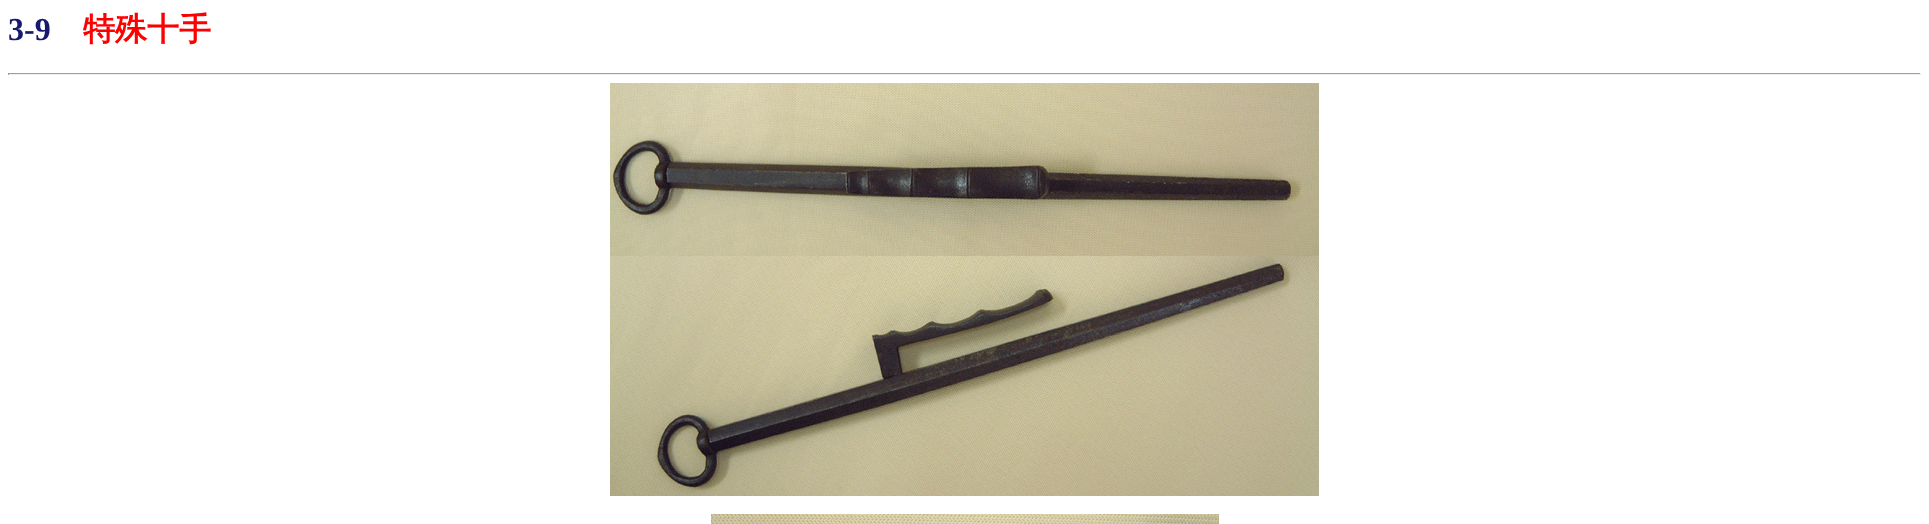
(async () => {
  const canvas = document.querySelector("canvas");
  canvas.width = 1929;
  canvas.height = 524;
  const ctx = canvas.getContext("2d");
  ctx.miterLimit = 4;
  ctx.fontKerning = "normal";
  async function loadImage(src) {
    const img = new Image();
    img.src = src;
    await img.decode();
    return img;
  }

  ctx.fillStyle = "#ffffff";
  ctx.fillRect(0, 0, 1929, 524);
  for (const [x, y, w, h, color] of [
    [8, 73, 1913, 1, "#9f9f9f"],
    [1920, 73, 1, 2, "#eeeeee"],
    [8, 74, 1913, 1, "#eeeeee"],
    [8, 73, 1, 2, "#9f9f9f"],
  ]) {
    ctx.fillStyle = color;
    ctx.fillRect(x, y, w, h);
  }
  ctx.drawImage(await loadImage("img/1.png"), 610, 83, 709, 173);
  ctx.drawImage(await loadImage("img/2.png"), 610, 256, 709, 240);
  ctx.drawImage(await loadImage("img/3.png"), 711, 514, 508, 10);
  ctx.font = "bold 32px Liberation Serif";
  ctx.fillStyle = "#18186f";
  ctx.fillText("3-9", 8, 40);
  ctx.font = "bold 32px WenQuanYi Zen Hei";
  ctx.fillStyle = "#fe0000";
  ctx.fillText("特殊十手", 83, 40);
})();
